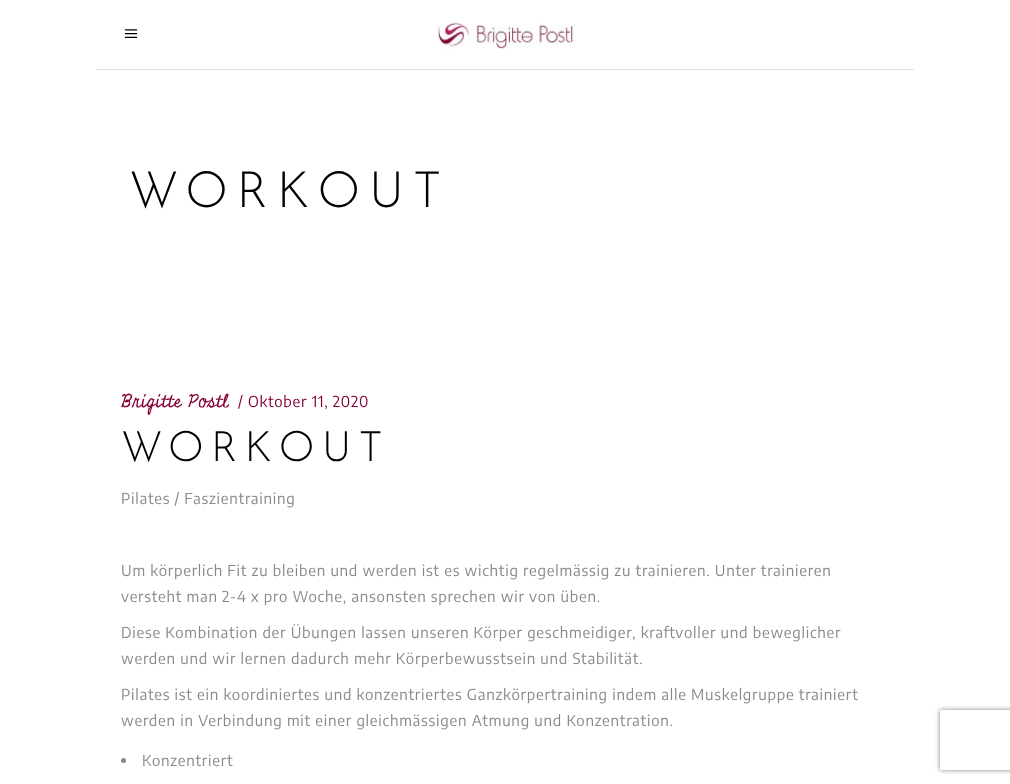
(async () => {
  const canvas = document.querySelector("canvas");
  canvas.width = 1010;
  canvas.height = 784;
  const ctx = canvas.getContext("2d");
  ctx.miterLimit = 4;
  ctx.fontKerning = "normal";
  async function loadImage(src) {
    const img = new Image();
    img.src = src;
    await img.decode();
    return img;
  }
  let path;

  ctx.fillStyle = "#ffffff";
  ctx.fillRect(0, 0, 1010, 784);
  ctx.fillStyle = "#e1e1e1";
  ctx.fillRect(96, 69, 818, 1);
  ctx.drawImage(await loadImage("img/1.png"), 124, 29, 14, 9);
  ctx.drawImage(await loadImage("img/2.png"), 437, 20, 138, 29);
  ctx.fillStyle = "#898989";
  ctx.beginPath();
  ctx.arc(123.5, 760.5, 2.5, 0, Math.PI * 2);
  ctx.fill();
  ctx.save();
  path = new Path2D("M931 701H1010V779H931ZM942 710H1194C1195 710 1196 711 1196 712V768C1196 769 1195 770 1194 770H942C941 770 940 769 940 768V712C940 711 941 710 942 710Z");
  ctx.clip(path, "evenodd");
  ctx.fillStyle = "#808080";
  ctx.filter = "blur(2.5px)";
  ctx.beginPath();
  ctx.roundRect(940, 710, 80, 60, 2);
  ctx.fill();
  ctx.filter = "none";
  ctx.restore();
  ctx.letterSpacing = "8.5px";
  ctx.font = "300 50px Josefin Sans";
  ctx.fillStyle = "#000000";
  ctx.fillText("WORKOUT", 129, 207);
  ctx.letterSpacing = "0.5px";
  ctx.font = "18px Miniver";
  ctx.fillStyle = "#860037";
  ctx.fillText("Brigitte Postl", 121, 407);
  ctx.letterSpacing = "0.75px";
  ctx.font = "15px Encode Sans";
  ctx.fillText("/", 238, 407);
  ctx.fillText("Oktober 11, 2020", 248, 407);
  ctx.letterSpacing = "7px";
  ctx.font = "300 42px Josefin Sans";
  ctx.fillStyle = "#000000";
  ctx.fillText("WORKOUT", 121, 461);
  ctx.letterSpacing = "0.75px";
  ctx.font = "15px Encode Sans";
  ctx.fillStyle = "#898989";
  for (const [text, x, y] of [
    ["Pilates / Faszientraining", 121, 504],
    ["Um körperlich Fit zu bleiben und werden ist es wichtig regelmässig zu trainieren. Unter trainieren", 121, 576],
    ["versteht man 2-4 x pro Woche, ansonsten sprechen wir von üben.", 121, 602],
    ["Diese Kombination der Übungen lassen unseren Körper geschmeidiger, kraftvoller und beweglicher", 121, 638],
    ["werden und wir lernen dadurch mehr Körperbewusstsein und Stabilität.", 121, 664],
    ["Pilates ist ein koordiniertes und konzentriertes Ganzkörpertraining indem alle Muskelgruppe trainiert", 121, 700],
    ["werden in Verbindung mit einer gleichmässigen Atmung und Konzentration.", 121, 726],
    ["Konzentriert", 142, 766],
  ]) {
    ctx.fillText(text, x, y);
  }
})();
